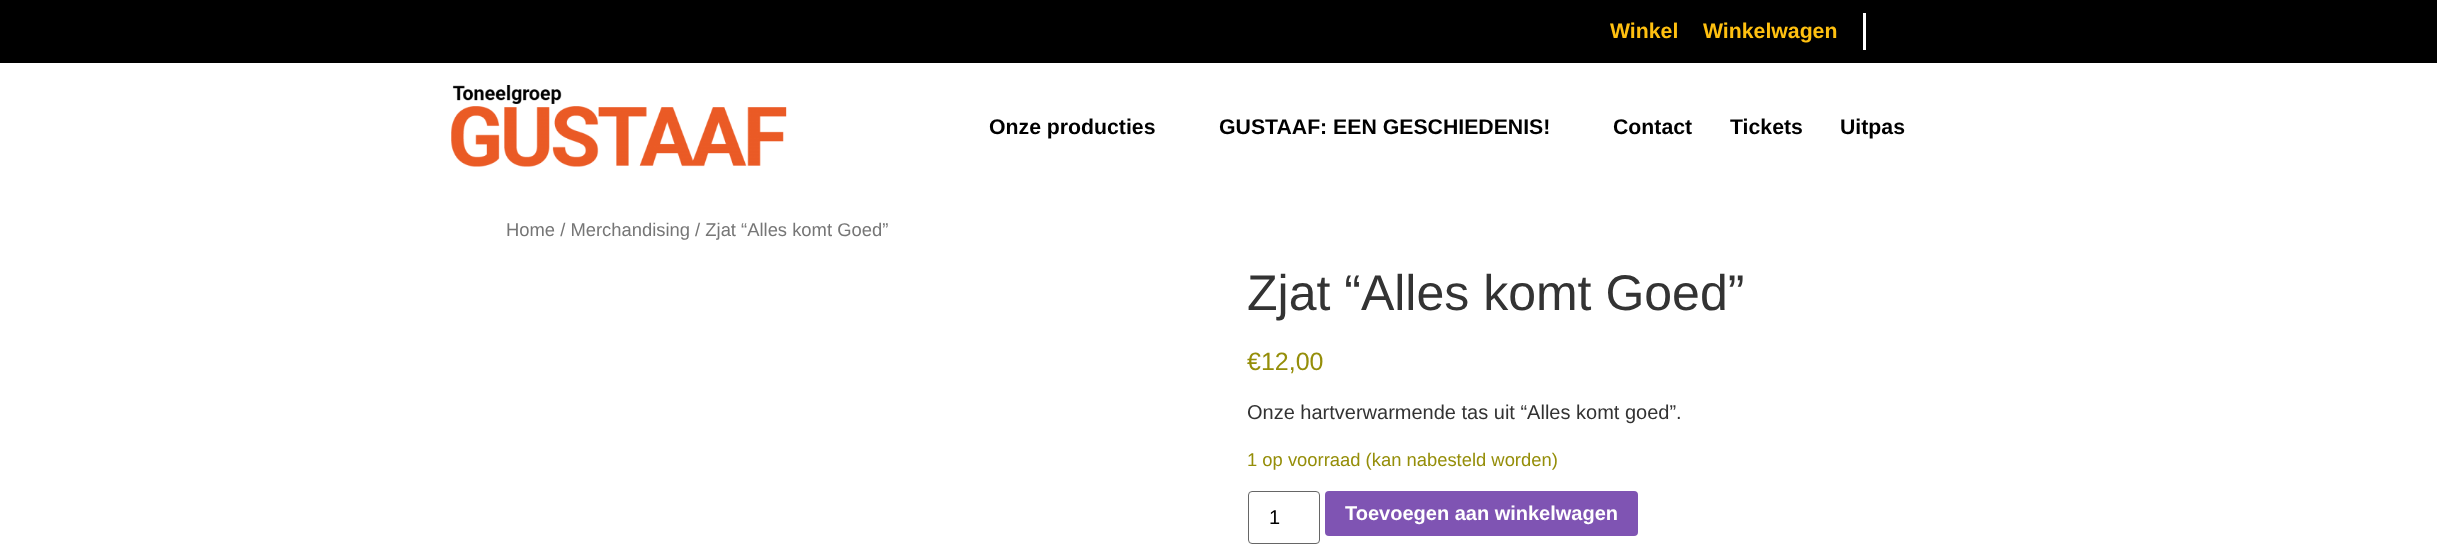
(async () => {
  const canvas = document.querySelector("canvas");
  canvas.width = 2437;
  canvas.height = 558;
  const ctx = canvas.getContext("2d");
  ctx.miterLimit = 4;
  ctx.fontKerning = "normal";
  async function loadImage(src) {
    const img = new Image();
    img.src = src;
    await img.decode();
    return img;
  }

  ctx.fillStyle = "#ffffff";
  ctx.fillRect(0, 0, 2437, 558);
  ctx.fillStyle = "#000000";
  ctx.fillRect(0, 0, 2437, 63);
  ctx.fillStyle = "#ffffff";
  ctx.fillRect(1863, 13, 3, 37);
  ctx.drawImage(await loadImage("img/1.png"), 451, 85, 336, 82);
  ctx.beginPath();
  ctx.roundRect(1248.5, 491.5, 71, 52, 3.5);
  ctx.strokeStyle = "#666666";
  ctx.stroke();
  ctx.fillStyle = "#7f54b3";
  ctx.beginPath();
  ctx.roundRect(1325, 491, 313, 45, 4);
  ctx.fill();
  ctx.font = "bold 21.25px Liberation Sans";
  ctx.fillStyle = "#ffc010";
  ctx.fillText("Winkel", 1610, 38);
  ctx.fillText("Winkelwagen", 1703, 38);
  ctx.fillStyle = "#000000";
  for (const [text, x, y] of [
    ["Onze producties", 989, 134],
    ["GUSTAAF: EEN GESCHIEDENIS!", 1219, 134],
    ["Contact", 1613, 134],
    ["Tickets", 1730, 134],
    ["Uitpas", 1840, 134],
  ]) {
    ctx.fillText(text, x, y);
  }
  ctx.font = "18.4px Liberation Sans";
  ctx.fillStyle = "#767676";
  ctx.fillText("Home / Merchandising / Zjat “Alles komt Goed”", 506, 236);
  ctx.font = "50px Liberation Sans";
  ctx.fillStyle = "#333333";
  ctx.fillText("Zjat “Alles komt Goed”", 1247, 310);
  ctx.font = "25px Liberation Sans";
  ctx.fillStyle = "#958e09";
  ctx.fillText("€12,00", 1247, 370);
  ctx.font = "20px Liberation Sans";
  ctx.fillStyle = "#333333";
  ctx.fillText("Onze hartverwarmende tas uit “Alles komt goed”.", 1247, 419);
  ctx.font = "18.4px Liberation Sans";
  ctx.fillStyle = "#958e09";
  ctx.fillText("1 op voorraad (kan nabesteld worden)", 1247, 466);
  ctx.font = "20px Liberation Sans";
  ctx.fillStyle = "#000000";
  ctx.fillText("1", 1269, 524);
  ctx.font = "bold 20px Liberation Sans";
  ctx.fillStyle = "#ffffff";
  ctx.fillText("Toevoegen aan winkelwagen", 1345, 520);
})();
